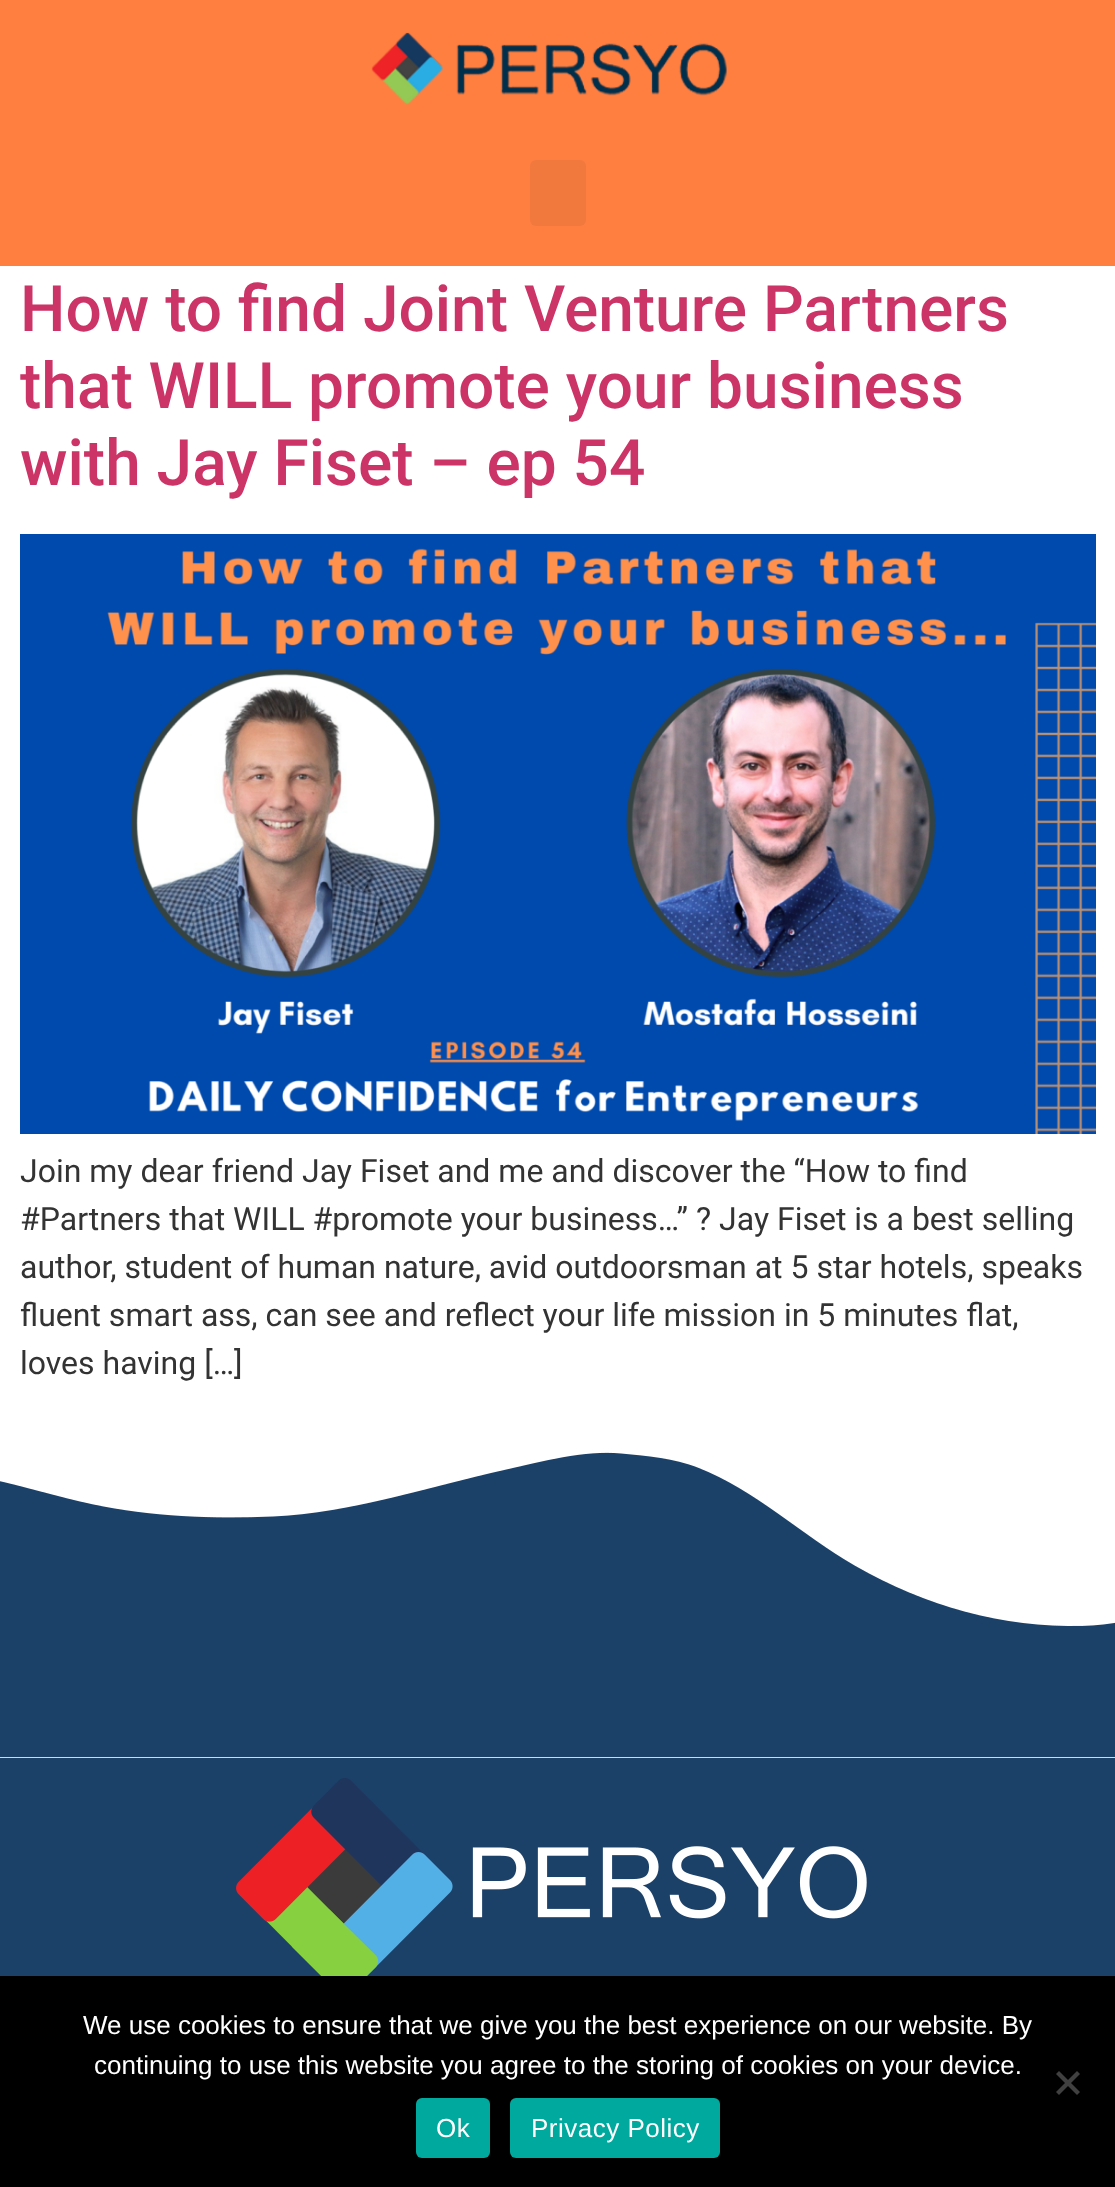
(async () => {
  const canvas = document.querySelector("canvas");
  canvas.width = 1115;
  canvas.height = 2187;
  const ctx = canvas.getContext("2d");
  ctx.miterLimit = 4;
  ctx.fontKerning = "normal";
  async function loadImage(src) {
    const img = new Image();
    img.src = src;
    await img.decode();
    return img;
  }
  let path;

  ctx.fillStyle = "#ffffff";
  ctx.fillRect(0, 0, 1115, 2187);
  ctx.fillStyle = "#ff7f41";
  ctx.fillRect(0, 0, 1115, 266);
  ctx.drawImage(await loadImage("img/1.png"), 371, 32, 356, 73);
  ctx.fillStyle = "#f2793e";
  ctx.beginPath();
  ctx.roundRect(530, 160, 56, 66, 6);
  ctx.fill();
  ctx.drawImage(await loadImage("img/2.png"), 20, 534, 1076, 600);
  ctx.drawImage(await loadImage("img/3.png"), 0, 1452, 1115, 306);
  ctx.fillStyle = "#1b4169";
  ctx.fillRect(0, 1758, 1115, 218);
  ctx.drawImage(await loadImage("img/4.png"), 236, 1778, 631, 198);
  ctx.fillStyle = "#000000";
  ctx.fillRect(0, 1976, 1115, 211);
  ctx.fillStyle = "#404040";
  path = new Path2D("M1077 2071L1080 2074L1059 2095L1056 2092Z");
  ctx.fill(path);
  path = new Path2D("M1056 2074L1059 2071L1080 2092L1077 2095Z");
  ctx.fill(path);
  ctx.fillStyle = "#00a99d";
  ctx.beginPath();
  ctx.roundRect(416, 2098, 74, 60, 6);
  ctx.fill();
  ctx.beginPath();
  ctx.roundRect(510, 2098, 210, 60, 6);
  ctx.fill();
  ctx.font = "500 64px Roboto";
  ctx.fillStyle = "#cc3366";
  for (const [text, x, y] of [
    ["How to find Joint Venture Partners", 20, 331],
    ["that WILL promote your business", 20, 408],
    ["with Jay Fiset – ep 54", 20, 485],
  ]) {
    ctx.fillText(text, x, y);
  }
  ctx.font = "32px Roboto";
  ctx.fillStyle = "#333333";
  for (const [text, x, y] of [
    ["Join my dear friend Jay Fiset and me and discover the “How to find", 20, 1182],
    ["#Partners that WILL #promote your business…” ? Jay Fiset is a best selling", 20, 1230],
    ["author, student of human nature, avid outdoorsman at 5 star hotels, speaks", 20, 1278],
    ["fluent smart ass, can see and reflect your life mission in 5 minutes flat,", 20, 1326],
    ["loves having […]", 20, 1374],
  ]) {
    ctx.fillText(text, x, y);
  }
  ctx.font = "26px Liberation Sans";
  ctx.fillStyle = "#ffffff";
  ctx.fillText("We use cookies to ensure that we give you the best experience on our website. By", 83, 2034);
  ctx.fillText("continuing to use this website you agree to the storing of cookies on your device.", 94, 2074);
  ctx.letterSpacing = "0.5px";
  ctx.fillText("Ok", 436, 2137);
  ctx.fillText("Privacy Policy", 531, 2137);
})();
